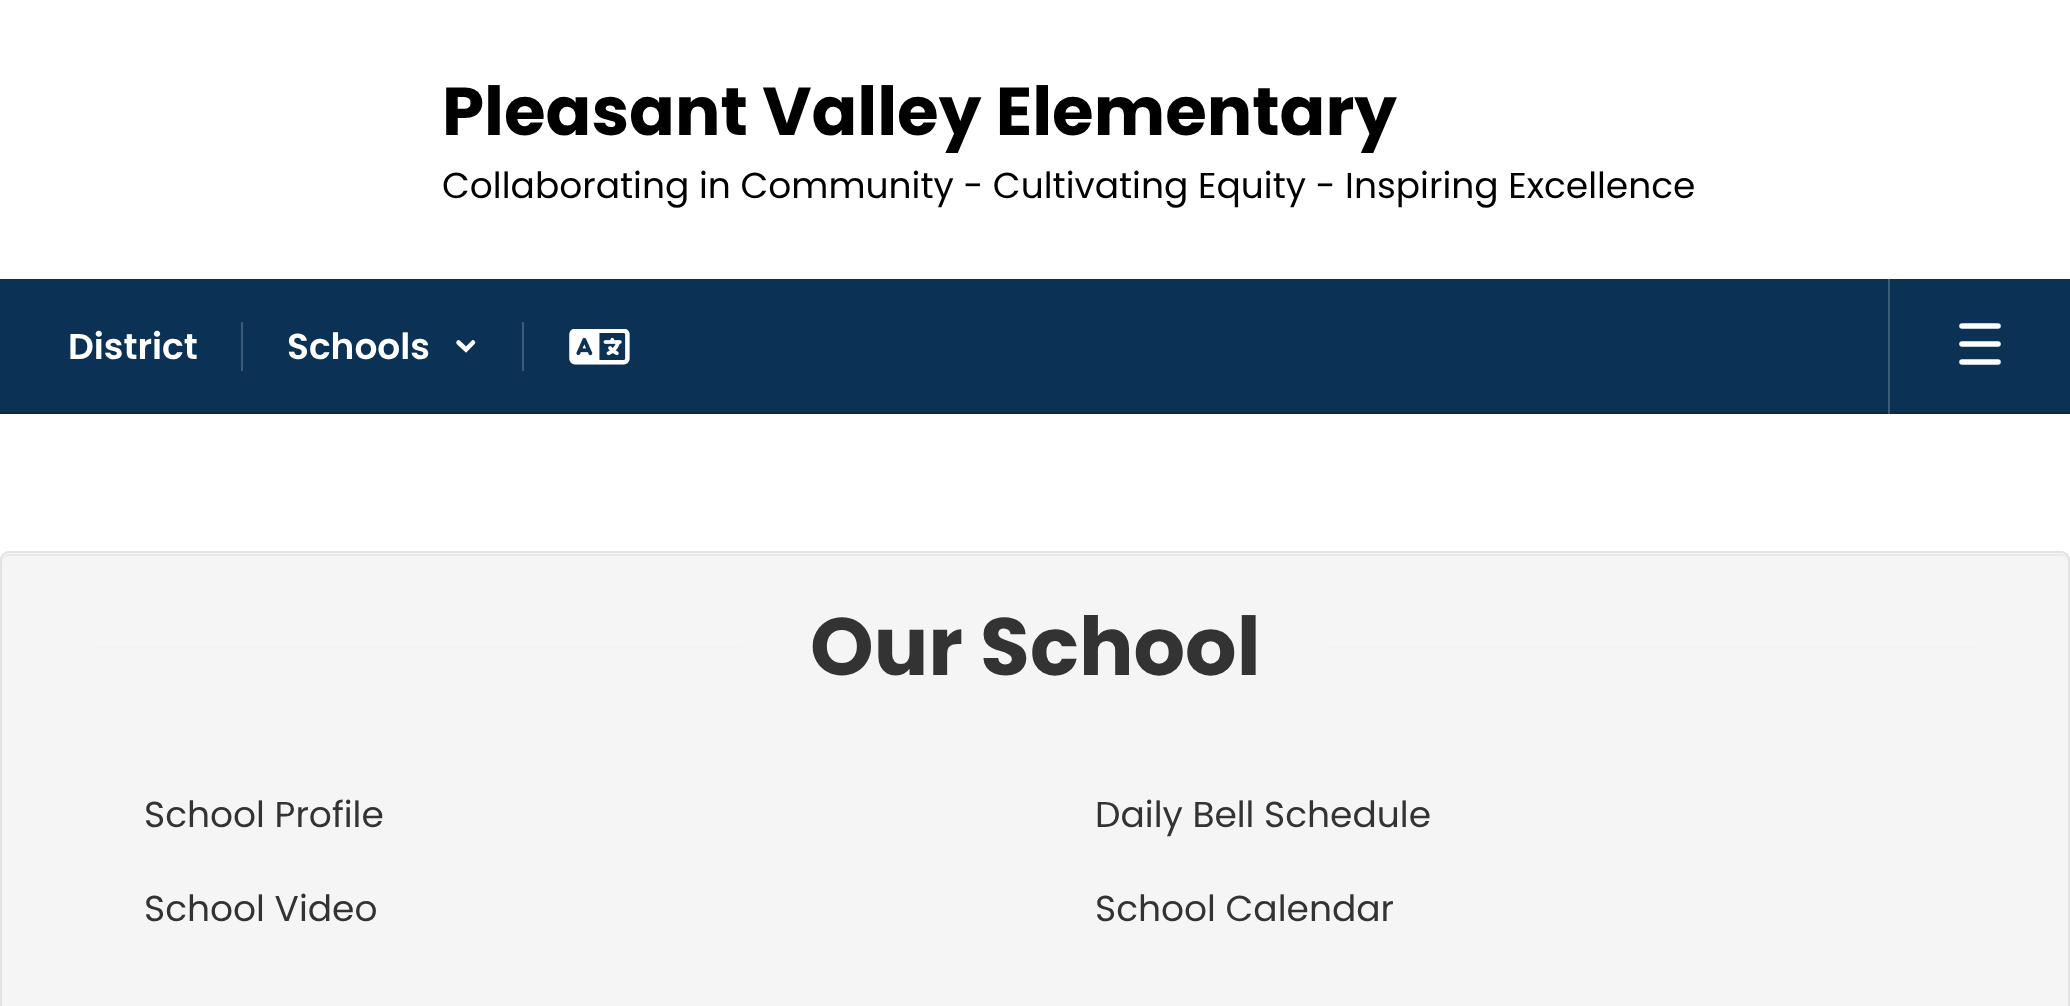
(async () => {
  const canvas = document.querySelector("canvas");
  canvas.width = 2070;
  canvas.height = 1006;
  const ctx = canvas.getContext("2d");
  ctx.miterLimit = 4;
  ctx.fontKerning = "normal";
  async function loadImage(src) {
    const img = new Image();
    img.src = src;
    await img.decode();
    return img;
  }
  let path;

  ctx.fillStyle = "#ffffff";
  ctx.fillRect(0, 0, 2070, 1006);
  for (const [x, y, w, h, color] of [
    [0, 279, 2070, 133, "#0b3254"],
    [1888, 279, 2, 135, "#3c5b76"],
    [241, 322, 2, 49, "#3c5b76"],
  ]) {
    ctx.fillStyle = color;
    ctx.fillRect(x, y, w, h);
  }
  path = new Path2D("M458.5 342.5L466 349.5L473 342.5");
  ctx.strokeStyle = "#ffffff";
  ctx.lineWidth = 4.5;
  ctx.lineCap = "round";
  ctx.stroke(path);
  ctx.fillRect(522, 322, 2, 49);
  ctx.drawImage(await loadImage("img/1.png"), 569, 329, 61, 36);
  path = new Path2D("M1962 326H1998M1962 344H1998M1962 362H1998");
  ctx.lineWidth = 5.6;
  ctx.stroke(path);
  ctx.fillStyle = "#092843";
  ctx.fillRect(0, 412, 2070, 2);
  ctx.fillStyle = "#3a5369";
  ctx.fillRect(1888, 412, 2, 2);
  ctx.fillStyle = "#f5f5f5";
  ctx.beginPath();
  ctx.roundRect(0, 551, 2070, 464, 9);
  ctx.fill();
  ctx.fillStyle = "#e9e9e9";
  path = new Path2D("M9 556H2061C2065 556 2068 559 2068 562V561C2068 557 2065 554 2061 554H9C5 554 2 557 2 561V562C2 559 5 556 9 556Z");
  ctx.fill(path);
  ctx.beginPath();
  ctx.roundRect(1, 552, 2068, 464, 8);
  ctx.strokeStyle = "#e3e3e3";
  ctx.lineWidth = 2;
  ctx.stroke();
  ctx.fillStyle = "#f2f3f3";
  ctx.fillRect(92, 646, 651, 2);
  ctx.fillRect(1328, 646, 650, 2);
  ctx.font = "bold 67.5px Poppins";
  ctx.fillStyle = "#000000";
  ctx.fillText("Pleasant Valley Elementary", 442, 135);
  ctx.font = "36px Poppins";
  ctx.fillText("Collaborating in Community - Cultivating Equity - Inspiring Excellence", 442, 198);
  ctx.font = "600 36px Poppins";
  ctx.fillStyle = "#ffffff";
  ctx.fillText("District", 68, 359);
  ctx.fillText("Schools", 287, 359);
  ctx.font = "bold 81px Poppins";
  ctx.fillStyle = "#333333";
  ctx.fillText("Our School", 810, 675);
  ctx.font = "36px Poppins";
  for (const [text, x, y] of [
    ["School Profile", 144, 827],
    ["Daily Bell Schedule", 1095, 827],
    ["School Video", 144, 921],
    ["School Calendar", 1095, 921],
  ]) {
    ctx.fillText(text, x, y);
  }
})();
